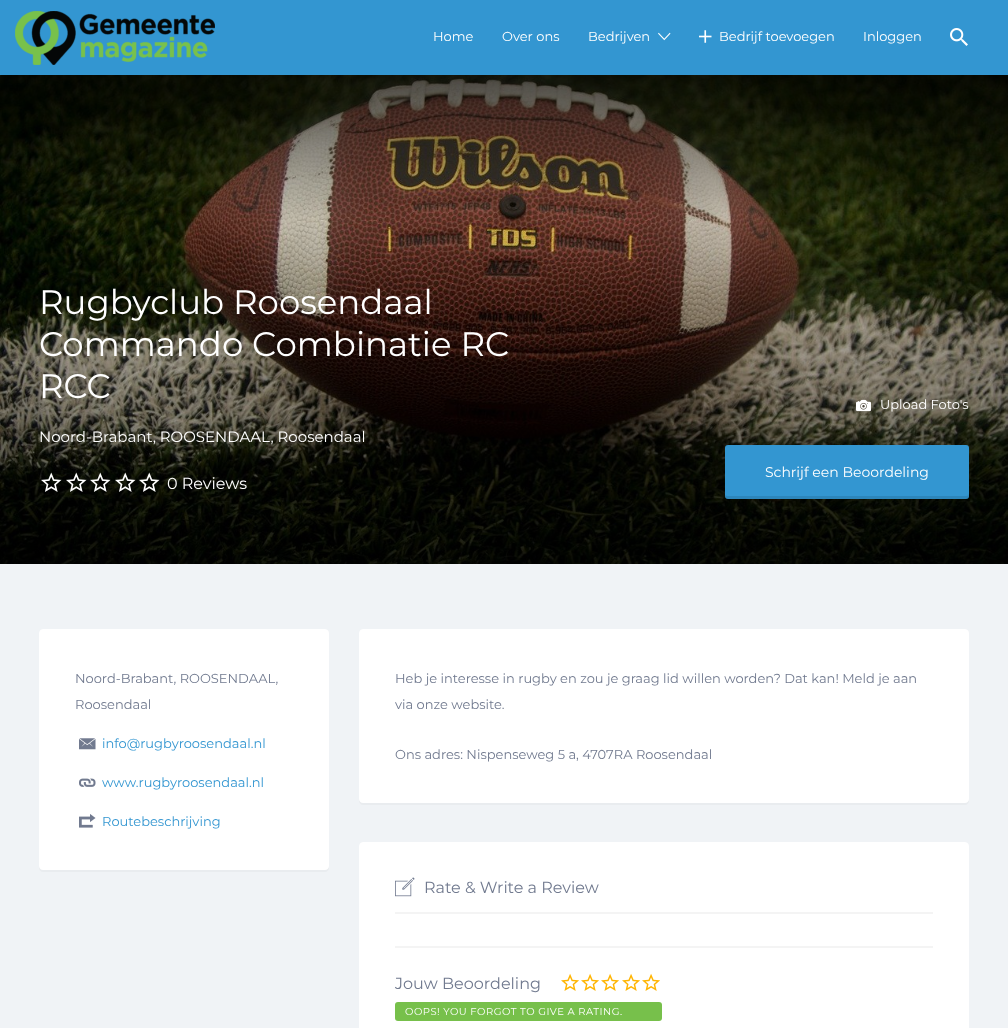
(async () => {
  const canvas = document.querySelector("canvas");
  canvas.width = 1008;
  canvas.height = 1028;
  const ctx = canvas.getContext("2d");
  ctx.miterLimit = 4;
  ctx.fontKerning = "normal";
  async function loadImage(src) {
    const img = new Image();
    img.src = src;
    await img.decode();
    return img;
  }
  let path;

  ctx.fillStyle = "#f0f3f6";
  ctx.fillRect(0, 0, 1008, 1028);
  ctx.fillStyle = "#3396d1";
  ctx.fillRect(0, 0, 1008, 75);
  ctx.drawImage(await loadImage("img/1.png"), 15, 11, 200, 54);
  ctx.drawImage(await loadImage("img/2.png"), 658, 32, 13, 9);
  ctx.drawImage(await loadImage("img/3.png"), 699, 30, 13, 13);
  ctx.drawImage(await loadImage("img/4.png"), 950, 28, 18, 18);
  ctx.drawImage(await loadImage("img/5.png"), 0, 75, 1008, 489);
  ctx.drawImage(await loadImage("img/6.png"), 41, 472, 21, 20);
  ctx.drawImage(await loadImage("img/7.png"), 66, 472, 21, 20);
  ctx.drawImage(await loadImage("img/8.png"), 90, 472, 21, 20);
  ctx.drawImage(await loadImage("img/9.png"), 115, 472, 21, 20);
  ctx.drawImage(await loadImage("img/10.png"), 139, 472, 21, 20);
  ctx.drawImage(await loadImage("img/11.png"), 856, 399, 15, 13);
  ctx.beginPath();
  ctx.roundRect(725, 445, 244, 54, 3);
  ctx.fill();
  ctx.fillStyle = "rgba(0, 0, 0, 0.1)";
  path = new Path2D("M725 493C725 495 725 499 728 499H966C969 499 969 495 969 493C969 495 968 496 966 496H727L725 495Z");
  ctx.fill(path);
  ctx.fillStyle = "#e9ecef";
  path = new Path2D("M39 866V868C39 870 41 872 43 872H325C327 872 329 870 329 868V866C329 868 327 870 325 870H43C41 870 39 868 39 866Z");
  ctx.fill(path);
  ctx.fillStyle = "#ffffff";
  ctx.beginPath();
  ctx.roundRect(39.5, 629.5, 289, 240, 3.5);
  ctx.fill();
  ctx.strokeStyle = "#ffffff";
  ctx.stroke();
  ctx.drawImage(await loadImage("img/12.png"), 79, 738, 17, 12);
  ctx.drawImage(await loadImage("img/13.png"), 79, 778, 17, 9);
  ctx.drawImage(await loadImage("img/14.png"), 79, 814, 17, 14);
  ctx.fillStyle = "#e9ecef";
  path = new Path2D("M359 799V801C359 803 361 805 363 805H965C967 805 969 803 969 801V799C969 801 967 803 965 803H363C361 803 359 801 359 799Z");
  ctx.fill(path);
  ctx.fillStyle = "#ffffff";
  ctx.beginPath();
  ctx.roundRect(359.5, 629.5, 609, 173, 3.5);
  ctx.fill();
  ctx.stroke();
  ctx.beginPath();
  ctx.roundRect(359.5, 842.5, 609, 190, 3.5);
  ctx.fill();
  ctx.stroke();
  ctx.fillStyle = "#f4f4f4";
  ctx.fillRect(395, 912, 538, 2);
  ctx.drawImage(await loadImage("img/15.png"), 395, 877, 20, 20);
  ctx.fillRect(395, 946, 538, 2);
  ctx.drawImage(await loadImage("img/16.png"), 561, 973, 18, 18);
  ctx.drawImage(await loadImage("img/16.png"), 581, 973, 18, 18);
  ctx.drawImage(await loadImage("img/16.png"), 601, 973, 18, 18);
  ctx.drawImage(await loadImage("img/16.png"), 622, 973, 18, 18);
  ctx.drawImage(await loadImage("img/16.png"), 642, 973, 18, 18);
  ctx.fillStyle = "#77c04b";
  ctx.beginPath();
  ctx.roundRect(395, 1002, 267, 19, 3);
  ctx.fill();
  ctx.font = "13px Montserrat";
  ctx.fillStyle = "#ffffff";
  for (const [text, x, y] of [
    ["Home", 433, 41],
    ["Over ons", 502, 41],
    ["Bedrijven", 588, 41],
    ["Bedrijf toevoegen", 719, 41],
    ["Inloggen", 863, 41],
  ]) {
    ctx.fillText(text, x, y);
  }
  ctx.font = "34px Montserrat";
  for (const [text, x, y] of [
    ["Rugbyclub Roosendaal", 39, 314],
    ["Commando Combinatie RC", 39, 356],
    ["RCC", 39, 398],
  ]) {
    ctx.fillText(text, x, y);
  }
  ctx.font = "15px Montserrat";
  ctx.fillText("Noord-Brabant, ROOSENDAAL, Roosendaal", 39, 442);
  ctx.font = "16px Montserrat";
  ctx.fillText("0 Reviews", 167, 489);
  ctx.font = "13px Montserrat";
  ctx.fillText("Upload Foto's", 880, 409);
  ctx.font = "14px Montserrat";
  ctx.fillText("Schrijf een Beoordeling", 765, 477);
  ctx.font = "13px Montserrat";
  ctx.fillStyle = "#717a8f";
  ctx.fillText("Noord-Brabant, ROOSENDAAL,", 75, 683);
  ctx.fillText("Roosendaal", 75, 709);
  ctx.fillStyle = "#3396d1";
  for (const [text, x, y] of [
    ["info@rugbyroosendaal.nl", 102, 748],
    ["www.rugbyroosendaal.nl", 102, 787],
    ["Routebeschrijving", 102, 826],
  ]) {
    ctx.fillText(text, x, y);
  }
  ctx.fillStyle = "#717a8f";
  for (const [text, x, y] of [
    ["Heb je interesse in rugby en zou je graag lid willen worden? Dat kan! Meld je aan", 395, 683],
    ["via onze website.", 395, 709],
    ["Ons adres: Nispenseweg 5 a, 4707RA Roosendaal", 395, 759],
  ]) {
    ctx.fillText(text, x, y);
  }
  ctx.font = "16px Montserrat";
  ctx.fillText("Rate & Write a Review", 424, 893);
  ctx.fillText("Jouw Beoordeling", 395, 989);
  ctx.letterSpacing = "0.5px";
  ctx.font = "10px Montserrat";
  ctx.fillStyle = "#ffffff";
  ctx.fillText("OOPS! YOU FORGOT TO GIVE A RATING.", 405, 1015);
})();
